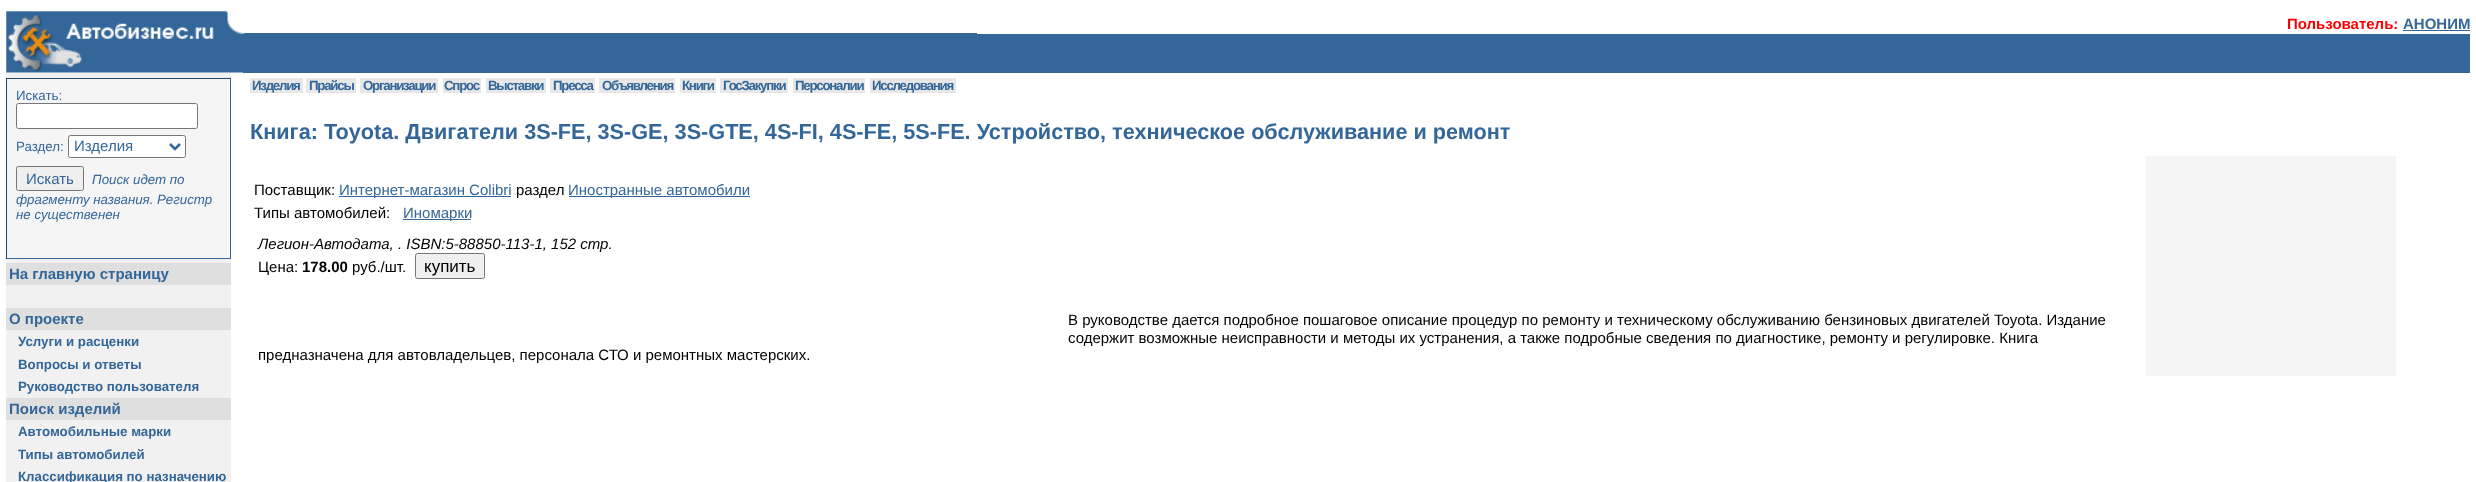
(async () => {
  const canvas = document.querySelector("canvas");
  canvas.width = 2476;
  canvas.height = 482;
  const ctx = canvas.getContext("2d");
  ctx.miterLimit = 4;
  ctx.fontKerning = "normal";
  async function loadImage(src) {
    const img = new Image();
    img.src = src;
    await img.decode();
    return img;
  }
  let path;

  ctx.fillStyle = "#ffffff";
  ctx.fillRect(0, 0, 2476, 482);
  ctx.fillStyle = "#336699";
  ctx.fillRect(243, 33, 734, 40);
  ctx.drawImage(await loadImage("img/1.png"), 6, 11, 238, 62);
  for (const [x, y, w, h, color] of [
    [2403, 30, 67, 1, "#336699"],
    [977, 34, 1493, 39, "#336699"],
    [6, 73, 225, 409, "#f1f1f1"],
    [7, 79, 223, 179, "#f5f5f5"],
    [6, 78, 225, 1, "#224466"],
    [230, 78, 1, 181, "#336699"],
    [6, 258, 225, 1, "#336699"],
    [6, 78, 1, 181, "#224466"],
  ]) {
    ctx.fillStyle = color;
    ctx.fillRect(x, y, w, h);
  }
  ctx.fillStyle = "#ffffff";
  ctx.beginPath();
  ctx.roundRect(16.5, 103.5, 181, 25, 2);
  ctx.fill();
  ctx.strokeStyle = "#767676";
  ctx.stroke();
  ctx.beginPath();
  ctx.roundRect(68.5, 135.5, 117, 22, 2);
  ctx.fill();
  ctx.stroke();
  path = new Path2D("M170 144L175 149L180 144");
  ctx.strokeStyle = "#336699";
  ctx.lineWidth = 2.5;
  ctx.stroke(path);
  ctx.fillStyle = "#efefef";
  ctx.beginPath();
  ctx.roundRect(16.5, 166.5, 67, 24, 2);
  ctx.fill();
  ctx.strokeStyle = "#767676";
  ctx.lineWidth = 1;
  ctx.stroke();
  for (const [x, y, w, h, color] of [
    [6, 263, 225, 22, "#dfdfdf"],
    [6, 308, 225, 22, "#dfdfdf"],
    [6, 398, 225, 22, "#dfdfdf"],
    [250, 78, 53, 15, "#e7e7e7"],
    [306, 78, 50, 15, "#e7e7e7"],
    [360, 78, 78, 15, "#e7e7e7"],
    [443, 78, 38, 15, "#e7e7e7"],
    [486, 78, 60, 15, "#e7e7e7"],
    [550, 78, 45, 15, "#e7e7e7"],
    [599, 78, 76, 15, "#e7e7e7"],
    [680, 78, 36, 15, "#e7e7e7"],
    [720, 78, 68, 15, "#e7e7e7"],
    [793, 78, 72, 15, "#e7e7e7"],
    [870, 78, 86, 15, "#e7e7e7"],
    [339, 196, 172, 1, "#336699"],
    [569, 196, 181, 1, "#336699"],
    [403, 219, 68, 1, "#336699"],
  ]) {
    ctx.fillStyle = color;
    ctx.fillRect(x, y, w, h);
  }
  ctx.fillStyle = "#efefef";
  ctx.beginPath();
  ctx.roundRect(415.5, 253.5, 69, 25, 2);
  ctx.fill();
  ctx.stroke();
  ctx.fillStyle = "#f5f5f5";
  ctx.fillRect(2146, 156, 250, 220);
  ctx.font = "bold 15px Liberation Sans";
  ctx.fillStyle = "#ff0000";
  ctx.fillText("Пользователь:", 2287, 29);
  ctx.fillStyle = "#336699";
  ctx.fillText("АНОНИМ", 2403, 29);
  ctx.font = "13.3px Liberation Sans";
  ctx.fillText("Искать:", 16, 100);
  ctx.fillText("Раздел:", 16, 151);
  ctx.font = "15px Liberation Sans";
  ctx.fillText("Изделия", 74, 151);
  ctx.fillText("Искать", 26, 184);
  ctx.font = "italic 13.3px Liberation Sans";
  for (const [text, x, y] of [
    ["Поиск идет по", 92, 184],
    ["фрагменту названия. Регистр", 16, 204],
    ["не существенен", 16, 219],
  ]) {
    ctx.fillText(text, x, y);
  }
  ctx.font = "bold 15px Liberation Sans";
  ctx.fillText("На главную страницу", 9, 279);
  ctx.fillText("О проекте", 9, 324);
  ctx.font = "bold 13.3px Liberation Sans";
  for (const [text, x, y] of [
    ["Услуги и расценки", 18, 346],
    ["Вопросы и ответы", 18, 369],
    ["Руководство пользователя", 18, 391],
  ]) {
    ctx.fillText(text, x, y);
  }
  ctx.font = "bold 15px Liberation Sans";
  ctx.fillText("Поиск изделий", 9, 414);
  ctx.font = "bold 13.3px Liberation Sans";
  for (const [text, x, y] of [
    ["Автомобильные марки", 18, 436],
    ["Типы автомобилей", 18, 459],
    ["Классификация по назначению", 18, 481],
  ]) {
    ctx.fillText(text, x, y);
  }
  ctx.letterSpacing = "-1.25px";
  for (const [text, x, y] of [
    ["Изделия", 252, 90],
    ["Прайсы", 309, 90],
    ["Организации", 363, 90],
    ["Спрос", 444, 90],
    ["Выставки", 488, 90],
    ["Пресса", 553, 90],
    ["Объявления", 602, 90],
    ["Книги", 682, 90],
    ["ГосЗакупки", 723, 90],
    ["Персоналии", 795, 90],
    ["Исследования", 872, 90],
  ]) {
    ctx.fillText(text, x, y);
  }
  ctx.letterSpacing = "0px";
  ctx.font = "bold 21.67px Liberation Sans";
  ctx.fillText("Книга: Toyota. Двигатели 3S-FE, 3S-GE, 3S-GTE, 4S-FI, 4S-FE, 5S-FE. Устройство, техническое обслуживание и ремонт", 250, 139);
  ctx.font = "15px Liberation Sans";
  ctx.fillStyle = "#000000";
  ctx.fillText("Поставщик:", 254, 195);
  ctx.fillStyle = "#336699";
  ctx.fillText("Интернет-магазин Colibri", 339, 195);
  ctx.fillStyle = "#000000";
  ctx.fillText("раздел", 516, 195);
  ctx.fillStyle = "#336699";
  ctx.fillText("Иностранные автомобили", 568, 195);
  ctx.fillStyle = "#000000";
  ctx.fillText("Типы автомобилей:", 254, 218);
  ctx.fillStyle = "#336699";
  ctx.fillText("Иномарки", 403, 218);
  ctx.font = "italic 15px Liberation Sans";
  ctx.fillStyle = "#000000";
  ctx.fillText("Легион-Автодата, . ISBN:5-88850-113-1, 152 стр.", 258, 249);
  ctx.font = "15px Liberation Sans";
  ctx.fillText("Цена:", 258, 272);
  ctx.font = "bold 15px Liberation Sans";
  ctx.fillText("178.00", 302, 272);
  ctx.font = "15px Liberation Sans";
  ctx.fillText("руб./шт.", 352, 272);
  ctx.font = "17px Liberation Sans";
  ctx.fillText("купить", 424, 272);
  ctx.font = "15px Liberation Sans";
  for (const [text, x, y] of [
    ["В руководстве дается подробное пошаговое описание процедур по ремонту и техническому обслуживанию бензиновых двигателей Toyota. Издание", 1068, 325],
    ["содержит возможные неисправности и методы их устранения, а также подробные сведения по диагностике, ремонту и регулировке. Книга", 1068, 343],
    ["предназначена для автовладельцев, персонала СТО и ремонтных мастерских.", 258, 360],
  ]) {
    ctx.fillText(text, x, y);
  }
})();
